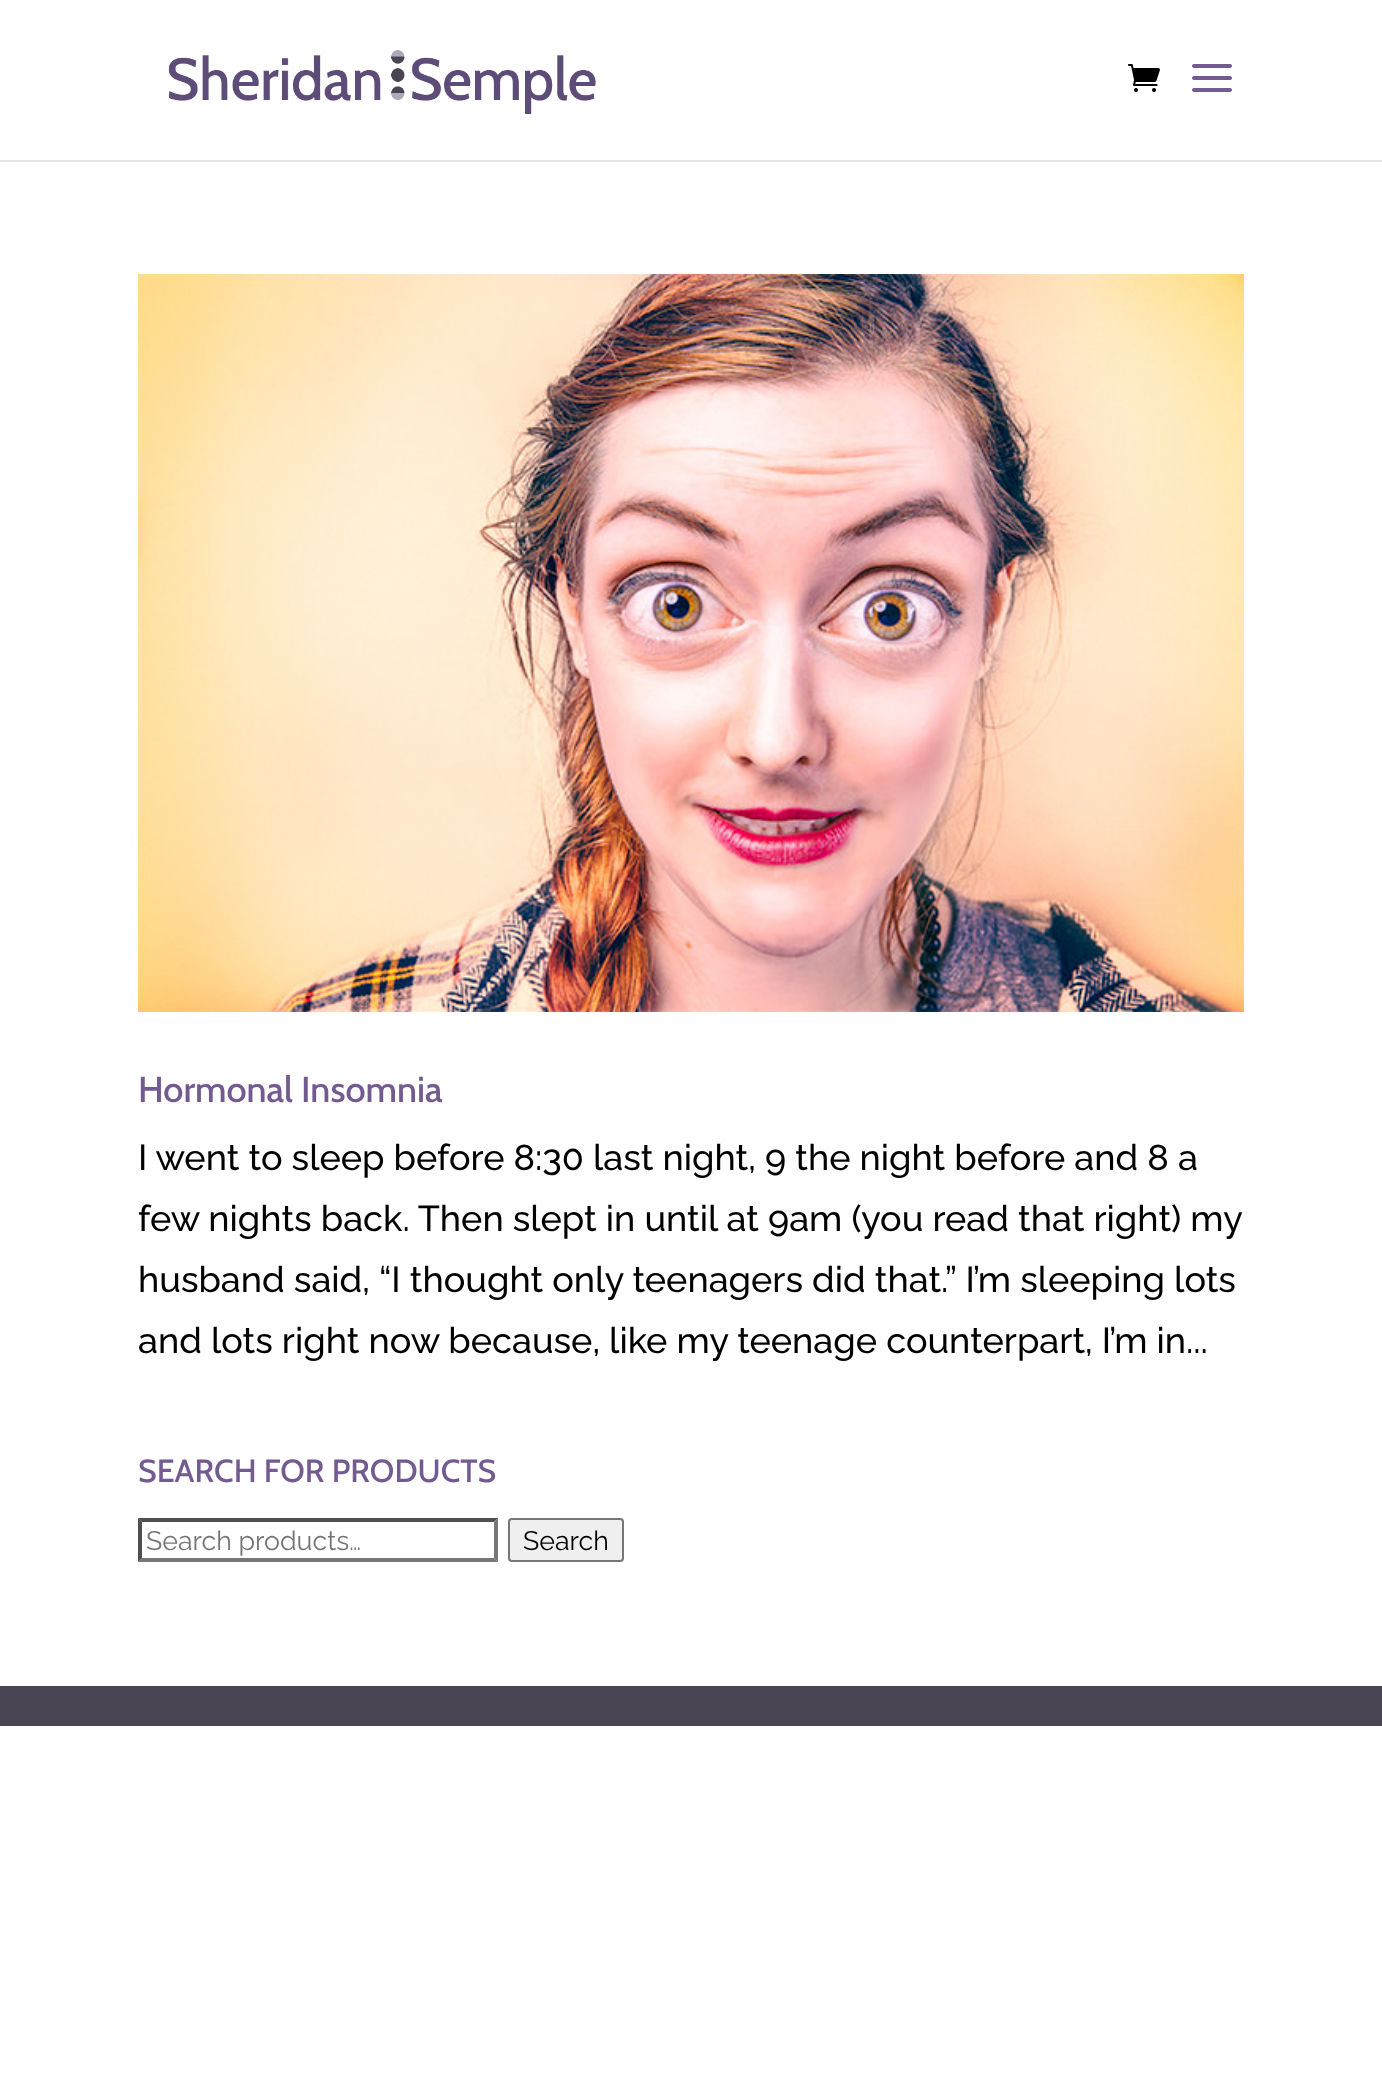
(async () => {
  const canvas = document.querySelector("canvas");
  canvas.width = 1382;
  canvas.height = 2091;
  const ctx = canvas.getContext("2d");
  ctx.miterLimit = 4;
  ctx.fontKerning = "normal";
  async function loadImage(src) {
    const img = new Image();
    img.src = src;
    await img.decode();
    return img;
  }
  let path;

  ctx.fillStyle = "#ffffff";
  ctx.fillRect(0, 0, 1382, 2091);
  ctx.fillStyle = "#e6e6e6";
  ctx.fillRect(0, 160, 1382, 2);
  ctx.drawImage(await loadImage("img/1.png"), 168, 50, 428, 64);
  ctx.drawImage(await loadImage("img/2.png"), 1128, 64, 32, 28);
  ctx.drawImage(await loadImage("img/3.png"), 1192, 64, 40, 28);
  ctx.drawImage(await loadImage("img/4.png"), 138, 274, 1106, 738);
  ctx.fillStyle = "#4f4f4f";
  path = new Path2D("M138 1518H498L494 1522H142Z");
  ctx.fill(path);
  ctx.fillStyle = "#767676";
  path = new Path2D("M498 1518V1562L494 1558V1522Z");
  ctx.fill(path);
  path = new Path2D("M498 1562H138L142 1558H494Z");
  ctx.fill(path);
  ctx.fillStyle = "#4f4f4f";
  path = new Path2D("M138 1562V1518L142 1522V1558Z");
  ctx.fill(path);
  ctx.fillStyle = "#efefef";
  ctx.beginPath();
  ctx.roundRect(509, 1519, 114, 42, 3);
  ctx.fill();
  ctx.strokeStyle = "#767676";
  ctx.lineWidth = 2;
  ctx.stroke();
  ctx.fillStyle = "#4b4453";
  ctx.fillRect(0, 1686, 1382, 40);
  ctx.font = "500 36px Cabin";
  ctx.fillStyle = "#735a91";
  ctx.fillText("Hormonal Insomnia", 138, 1102);
  ctx.font = "500 36px Raleway";
  ctx.fillStyle = "#000000";
  for (const [text, x, y] of [
    ["I went to sleep before 8:30 last night, 9 the night before and 8 a", 138, 1170],
    ["few nights back. Then slept in until at 9am (you read that right) my", 138, 1231],
    ["husband said, “I thought only teenagers did that.” I’m sleeping lots", 138, 1292],
    ["and lots right now because, like my teenage counterpart, I’m in...", 138, 1353],
  ]) {
    ctx.fillText(text, x, y);
  }
  ctx.font = "500 32px Cabin";
  ctx.fillStyle = "#735a91";
  ctx.fillText("SEARCH FOR PRODUCTS", 138, 1482);
  ctx.font = "26.75px Raleway";
  ctx.fillStyle = "#757575";
  ctx.fillText("Search products…", 146, 1550);
  ctx.fillStyle = "#000000";
  ctx.fillText("Search", 523, 1550);
})();
